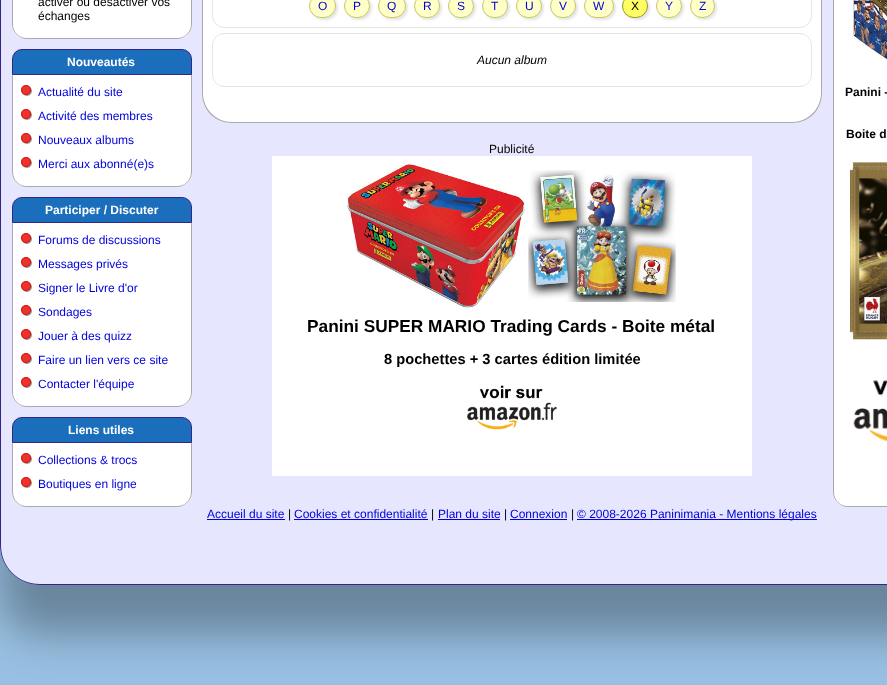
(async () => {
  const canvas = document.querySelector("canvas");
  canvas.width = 887;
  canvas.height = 685;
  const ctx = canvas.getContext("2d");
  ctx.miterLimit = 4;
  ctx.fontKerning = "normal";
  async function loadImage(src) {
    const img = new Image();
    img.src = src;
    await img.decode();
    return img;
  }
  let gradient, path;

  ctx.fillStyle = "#ffffff";
  ctx.fillRect(0, 0, 887, 685);
  gradient = ctx.createLinearGradient(443, -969, 444, 685);
  gradient.addColorStop(0, "#11416f");
  gradient.addColorStop(0.91, "#98c0e2");
  ctx.fillStyle = gradient;
  ctx.fillRect(0, 545, 887, 140);
  ctx.fillStyle = "rgba(0, 0, 0, 0.3)";
  ctx.filter = "blur(20px)";
  ctx.beginPath();
  ctx.roundRect(0, -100, 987, 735, 40);
  ctx.fill();
  ctx.filter = "none";
  ctx.fillStyle = "#e6e6ff";
  path = new Path2D("M0-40H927V545C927 567 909 585 887 585H40C18 585 0 567 0 545Z");
  ctx.fill(path);
  ctx.fillStyle = "#322787";
  path = new Path2D("M0-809H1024V545C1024 567 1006 585 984 585H40C18 585 0 567 0 545ZM1-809H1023V545C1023 567 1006 584 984 584H40C18 584 1 567 1 545Z");
  ctx.fill(path, "evenodd");
  ctx.fillStyle = "#ffffff";
  path = new Path2D("M12-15H192V24C192 32.5 185.5 39 177 39H27C18.5 39 12 32.5 12 24Z");
  ctx.fill(path);
  ctx.fillStyle = "#aaaaaa";
  path = new Path2D("M12-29H192V24C192 32 185 39 177 39H27C19 39 12 32 12 24ZM13-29H191V24C191 32 185 38 177 38H27C19 38 13 32 13 24Z");
  ctx.fill(path, "evenodd");
  ctx.fillStyle = "#1b6ebb";
  ctx.beginPath();
  ctx.roundRect(12.5, 49.5, 179, 25, [9.5, 9.5, 0, 0]);
  ctx.fill();
  ctx.strokeStyle = "#322787";
  ctx.stroke();
  ctx.fillStyle = "#ffffff";
  ctx.beginPath();
  ctx.roundRect(12, 75, 180, 112, [0, 0, 15, 15]);
  ctx.fill();
  ctx.fillStyle = "#aaaaaa";
  path = new Path2D("M12 75H192V172C192 180 185 187 177 187H27C19 187 12 180 12 172ZM13 75H191V172C191 180 185 186 177 186H27C19 186 13 180 13 172Z");
  ctx.fill(path, "evenodd");
  ctx.drawImage(await loadImage("img/1.png"), 21, 85, 11, 11);
  ctx.drawImage(await loadImage("img/1.png"), 21, 109, 11, 11);
  ctx.drawImage(await loadImage("img/1.png"), 21, 133, 11, 11);
  ctx.drawImage(await loadImage("img/1.png"), 21, 157, 11, 11);
  ctx.fillStyle = "#1b6ebb";
  ctx.beginPath();
  ctx.roundRect(12.5, 197.5, 179, 25, [9.5, 9.5, 0, 0]);
  ctx.fill();
  ctx.stroke();
  ctx.fillStyle = "#ffffff";
  ctx.beginPath();
  ctx.roundRect(12, 223, 180, 184, [0, 0, 15, 15]);
  ctx.fill();
  ctx.fillStyle = "#aaaaaa";
  path = new Path2D("M12 223H192V392C192 400 185 407 177 407H27C19 407 12 400 12 392ZM13 223H191V392C191 400 185 406 177 406H27C19 406 13 400 13 392Z");
  ctx.fill(path, "evenodd");
  ctx.drawImage(await loadImage("img/1.png"), 21, 233, 11, 11);
  ctx.drawImage(await loadImage("img/1.png"), 21, 257, 11, 11);
  ctx.drawImage(await loadImage("img/1.png"), 21, 281, 11, 11);
  ctx.drawImage(await loadImage("img/1.png"), 21, 305, 11, 11);
  ctx.drawImage(await loadImage("img/1.png"), 21, 329, 11, 11);
  ctx.drawImage(await loadImage("img/1.png"), 21, 353, 11, 11);
  ctx.drawImage(await loadImage("img/1.png"), 21, 377, 11, 11);
  ctx.fillStyle = "#1b6ebb";
  ctx.beginPath();
  ctx.roundRect(12.5, 417.5, 179, 25, [9.5, 9.5, 0, 0]);
  ctx.fill();
  ctx.stroke();
  ctx.fillStyle = "#ffffff";
  ctx.beginPath();
  ctx.roundRect(12, 443, 180, 64, [0, 0, 15, 15]);
  ctx.fill();
  ctx.fillStyle = "#aaaaaa";
  path = new Path2D("M12 443H192V492C192 500 185 507 177 507H27C19 507 12 500 12 492ZM13 443H191V492C191 500 185 506 177 506H27C19 506 13 500 13 492Z");
  ctx.fill(path, "evenodd");
  ctx.drawImage(await loadImage("img/1.png"), 21, 453, 11, 11);
  ctx.drawImage(await loadImage("img/1.png"), 21, 477, 11, 11);
  ctx.fillStyle = "#ffffff";
  path = new Path2D("M202-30H822V93C822 109.5 808.5 123 792 123H232C215.5 123 202 109.5 202 93Z");
  ctx.fill(path);
  ctx.fillStyle = "#aaaaaa";
  path = new Path2D("M202-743H822V93C822 110 809 123 792 123H232C215 123 202 110 202 93ZM203-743H821V93C821 109 808 122 792 122H232C216 122 203 109 203 93Z");
  ctx.fill(path, "evenodd");
  ctx.beginPath();
  ctx.roundRect(212.5, -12.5, 599, 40, 11.5);
  ctx.strokeStyle = "#e6e6e6";
  ctx.stroke();
  ctx.fillStyle = "rgba(0, 0, 0, 0.1)";
  ctx.filter = "blur(1px)";
  ctx.beginPath();
  ctx.roundRect(311, -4, 27, 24, 12);
  ctx.fill();
  ctx.filter = "none";
  ctx.fillStyle = "#ffffc8";
  ctx.beginPath();
  ctx.roundRect(309.5, -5.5, 26, 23, 11.5);
  ctx.fill();
  ctx.strokeStyle = "#c8c864";
  ctx.stroke();
  ctx.fillStyle = "rgba(0, 0, 0, 0.1)";
  ctx.filter = "blur(1px)";
  ctx.beginPath();
  ctx.roundRect(346, -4, 26, 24, 12);
  ctx.fill();
  ctx.filter = "none";
  ctx.fillStyle = "#ffffc8";
  ctx.beginPath();
  ctx.roundRect(344.5, -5.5, 25, 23, 11.5);
  ctx.fill();
  ctx.stroke();
  ctx.fillStyle = "rgba(0, 0, 0, 0.1)";
  ctx.filter = "blur(1px)";
  ctx.beginPath();
  ctx.roundRect(380, -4, 28, 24, 12);
  ctx.fill();
  ctx.filter = "none";
  ctx.fillStyle = "#ffffc8";
  ctx.beginPath();
  ctx.roundRect(378.5, -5.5, 27, 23, 11.5);
  ctx.fill();
  ctx.stroke();
  ctx.fillStyle = "rgba(0, 0, 0, 0.1)";
  ctx.filter = "blur(1px)";
  ctx.beginPath();
  ctx.roundRect(416, -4, 26, 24, 12);
  ctx.fill();
  ctx.filter = "none";
  ctx.fillStyle = "#ffffc8";
  ctx.beginPath();
  ctx.roundRect(414.5, -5.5, 25, 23, 11.5);
  ctx.fill();
  ctx.stroke();
  ctx.fillStyle = "rgba(0, 0, 0, 0.1)";
  ctx.filter = "blur(1px)";
  ctx.beginPath();
  ctx.roundRect(450, -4, 26, 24, 12);
  ctx.fill();
  ctx.filter = "none";
  ctx.fillStyle = "#ffffc8";
  ctx.beginPath();
  ctx.roundRect(448.5, -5.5, 25, 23, 11.5);
  ctx.fill();
  ctx.stroke();
  ctx.fillStyle = "rgba(0, 0, 0, 0.1)";
  ctx.filter = "blur(1px)";
  ctx.beginPath();
  ctx.roundRect(484, -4, 26, 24, 12);
  ctx.fill();
  ctx.filter = "none";
  ctx.fillStyle = "#ffffc8";
  ctx.beginPath();
  ctx.roundRect(482.5, -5.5, 25, 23, 11.5);
  ctx.fill();
  ctx.stroke();
  ctx.fillStyle = "rgba(0, 0, 0, 0.1)";
  ctx.filter = "blur(1px)";
  ctx.beginPath();
  ctx.roundRect(518, -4, 26, 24, 12);
  ctx.fill();
  ctx.filter = "none";
  ctx.fillStyle = "#ffffc8";
  ctx.beginPath();
  ctx.roundRect(516.5, -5.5, 25, 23, 11.5);
  ctx.fill();
  ctx.stroke();
  ctx.fillStyle = "rgba(0, 0, 0, 0.1)";
  ctx.filter = "blur(1px)";
  ctx.beginPath();
  ctx.roundRect(552, -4, 26, 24, 12);
  ctx.fill();
  ctx.filter = "none";
  ctx.fillStyle = "#ffffc8";
  ctx.beginPath();
  ctx.roundRect(550.5, -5.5, 25, 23, 11.5);
  ctx.fill();
  ctx.stroke();
  ctx.fillStyle = "rgba(0, 0, 0, 0.1)";
  ctx.filter = "blur(1px)";
  ctx.beginPath();
  ctx.roundRect(586, -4, 30, 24, 12);
  ctx.fill();
  ctx.filter = "none";
  ctx.fillStyle = "#ffffc8";
  ctx.beginPath();
  ctx.roundRect(584.5, -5.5, 29, 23, 11.5);
  ctx.fill();
  ctx.stroke();
  ctx.fillStyle = "rgba(0, 0, 0, 0.1)";
  ctx.filter = "blur(1px)";
  ctx.beginPath();
  ctx.roundRect(624, -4, 26, 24, 12);
  ctx.fill();
  ctx.filter = "none";
  ctx.fillStyle = "#ffff64";
  ctx.beginPath();
  ctx.roundRect(622.5, -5.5, 25, 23, 11.5);
  ctx.fill();
  ctx.strokeStyle = "#969632";
  ctx.stroke();
  ctx.fillStyle = "rgba(0, 0, 0, 0.1)";
  ctx.filter = "blur(1px)";
  ctx.beginPath();
  ctx.roundRect(658, -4, 26, 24, 12);
  ctx.fill();
  ctx.filter = "none";
  ctx.fillStyle = "#ffffc8";
  ctx.beginPath();
  ctx.roundRect(656.5, -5.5, 25, 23, 11.5);
  ctx.fill();
  ctx.strokeStyle = "#c8c864";
  ctx.stroke();
  ctx.fillStyle = "rgba(0, 0, 0, 0.1)";
  ctx.filter = "blur(1px)";
  ctx.beginPath();
  ctx.roundRect(692, -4, 25, 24, 12);
  ctx.fill();
  ctx.filter = "none";
  ctx.fillStyle = "#ffffc8";
  ctx.beginPath();
  ctx.roundRect(690.5, -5.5, 24, 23, 11.5);
  ctx.fill();
  ctx.stroke();
  ctx.beginPath();
  ctx.roundRect(212.5, 33.5, 599, 53, 11.5);
  ctx.strokeStyle = "#e6e6e6";
  ctx.stroke();
  ctx.fillStyle = "#ffffff";
  ctx.fillRect(272, 156, 480, 320);
  ctx.drawImage(await loadImage("img/2.png"), 347, 164, 178, 144);
  ctx.drawImage(await loadImage("img/3.png"), 528, 170, 148, 132);
  ctx.drawImage(await loadImage("img/4.png"), 467, 385, 90, 45);
  for (const [x, y, w, h, color] of [
    [207, 519, 78, 1, "#0000dc"],
    [294, 519, 134, 1, "#0000dc"],
    [438, 519, 62, 1, "#0000dc"],
    [510, 519, 57, 1, "#0000dc"],
    [577, 519, 240, 1, "#0000dc"],
  ]) {
    ctx.fillStyle = color;
    ctx.fillRect(x, y, w, h);
  }
  ctx.fillStyle = "#ffffff";
  path = new Path2D("M833-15H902V492C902 500.5 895.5 507 887 507H848C839.5 507 833 500.5 833 492Z");
  ctx.fill(path);
  ctx.fillStyle = "#aaaaaa";
  path = new Path2D("M833-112H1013V492C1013 500 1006 507 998 507H848C840 507 833 500 833 492ZM834-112H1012V492C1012 500 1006 506 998 506H848C840 506 834 500 834 492Z");
  ctx.fill(path, "evenodd");
  ctx.drawImage(await loadImage("img/5.png"), 853, 0, 34, 60);
  ctx.drawImage(await loadImage("img/6.png"), 849, 162, 38, 178);
  ctx.drawImage(await loadImage("img/7.png"), 853, 380, 34, 62);
  ctx.font = "12px Liberation Sans";
  ctx.fillStyle = "#000000";
  ctx.fillText("activer ou désactiver vos", 38, 6);
  ctx.fillText("échanges", 38, 20);
  ctx.font = "bold 12px Liberation Sans";
  ctx.fillStyle = "#ffffff";
  ctx.fillText("Nouveautés", 67, 66);
  ctx.font = "12px Liberation Sans";
  ctx.fillStyle = "#0000dc";
  for (const [text, x, y] of [
    ["Actualité du site", 38, 96],
    ["Activité des membres", 38, 120],
    ["Nouveaux albums", 38, 144],
    ["Merci aux abonné(e)s", 38, 168],
  ]) {
    ctx.fillText(text, x, y);
  }
  ctx.font = "bold 12px Liberation Sans";
  ctx.fillStyle = "#ffffff";
  ctx.fillText("Participer / Discuter", 45, 214);
  ctx.font = "12px Liberation Sans";
  ctx.fillStyle = "#0000dc";
  for (const [text, x, y] of [
    ["Forums de discussions", 38, 244],
    ["Messages privés", 38, 268],
    ["Signer le Livre d'or", 38, 292],
    ["Sondages", 38, 316],
    ["Jouer à des quizz", 38, 340],
    ["Faire un lien vers ce site", 38, 364],
    ["Contacter l'équipe", 38, 388],
  ]) {
    ctx.fillText(text, x, y);
  }
  ctx.font = "bold 12px Liberation Sans";
  ctx.fillStyle = "#ffffff";
  ctx.fillText("Liens utiles", 68, 434);
  ctx.font = "12px Liberation Sans";
  ctx.fillStyle = "#0000dc";
  for (const [text, x, y] of [
    ["Collections & trocs", 38, 464],
    ["Boutiques en ligne", 38, 488],
    ["O", 318, 10],
    ["P", 353, 10],
    ["Q", 387, 10],
    ["R", 423, 10],
    ["S", 457, 10],
    ["T", 491, 10],
    ["U", 525, 10],
    ["V", 559, 10],
    ["W", 593, 10],
  ]) {
    ctx.fillText(text, x, y);
  }
  ctx.fillStyle = "#000000";
  ctx.fillText("X", 631, 10);
  ctx.fillStyle = "#0000dc";
  ctx.fillText("Y", 665, 10);
  ctx.fillText("Z", 699, 10);
  ctx.font = "italic 12px Liberation Sans";
  ctx.fillStyle = "#000000";
  ctx.fillText("Aucun album", 477, 64);
  ctx.font = "12px Liberation Sans";
  ctx.fillText("Publicité", 489, 153);
  ctx.font = "bold 17.3px Liberation Sans";
  ctx.fillText("Panini SUPER MARIO Trading Cards - Boite métal", 307, 332);
  ctx.font = "bold 14.7px Liberation Sans";
  ctx.fillText("8 pochettes + 3 cartes édition limitée", 384, 364);
  ctx.font = "12px Liberation Sans";
  ctx.fillStyle = "#0000dc";
  ctx.fillText("Accueil du site", 207, 518);
  ctx.fillStyle = "#000000";
  ctx.fillText("|", 288, 518);
  ctx.fillStyle = "#0000dc";
  ctx.fillText("Cookies et confidentialité", 294, 518);
  ctx.fillStyle = "#000000";
  ctx.fillText("|", 431, 518);
  ctx.fillStyle = "#0000dc";
  ctx.fillText("Plan du site", 438, 518);
  ctx.fillStyle = "#000000";
  ctx.fillText("|", 504, 518);
  ctx.fillStyle = "#0000dc";
  ctx.fillText("Connexion", 510, 518);
  ctx.fillStyle = "#000000";
  ctx.fillText("|", 571, 518);
  ctx.fillStyle = "#0000dc";
  ctx.fillText("© 2008-2026 Paninimania - Mentions légales", 577, 518);
  ctx.font = "bold 12px Liberation Sans";
  ctx.fillStyle = "#000000";
  ctx.fillText("Panini -", 845, 96);
  ctx.fillText("Boite d", 846, 138);
})();
